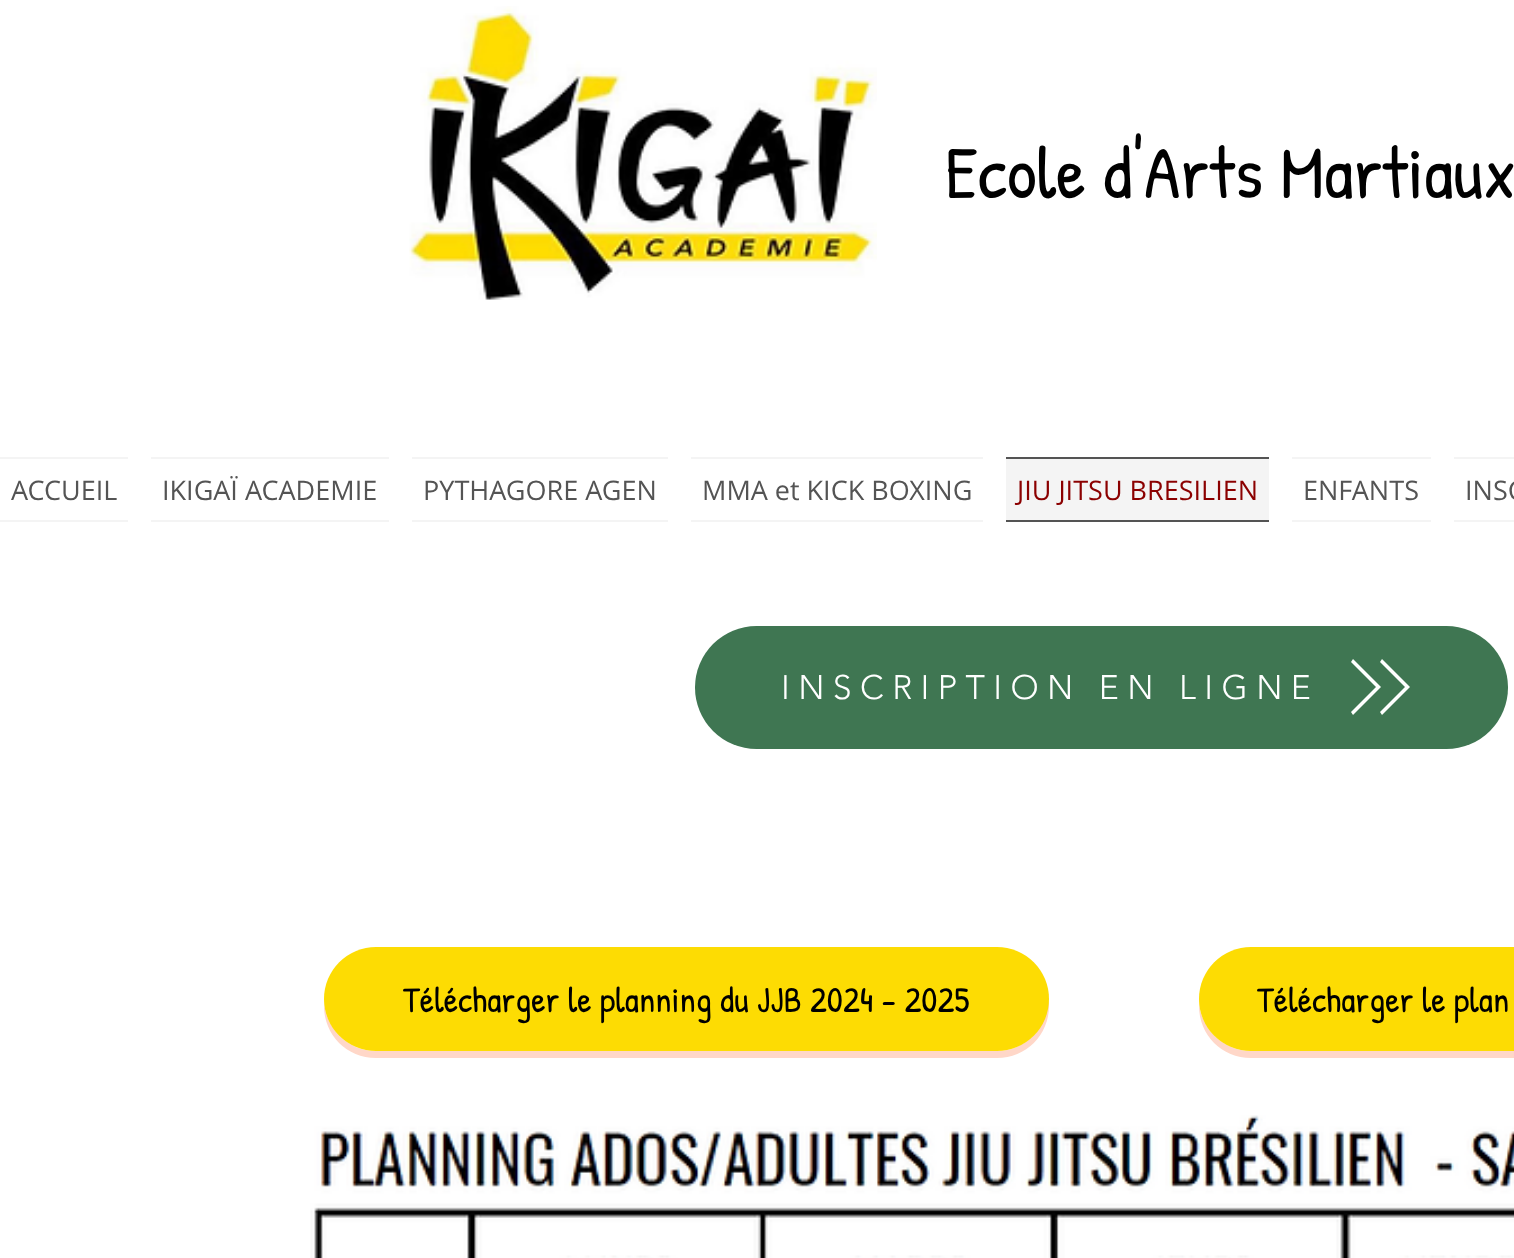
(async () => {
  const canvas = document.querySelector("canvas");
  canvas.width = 1514;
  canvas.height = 1258;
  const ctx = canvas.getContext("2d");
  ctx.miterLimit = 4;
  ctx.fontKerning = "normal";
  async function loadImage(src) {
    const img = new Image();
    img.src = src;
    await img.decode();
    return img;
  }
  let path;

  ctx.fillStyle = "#ffffff";
  ctx.fillRect(0, 0, 1514, 1258);
  ctx.drawImage(await loadImage("img/1.png"), 409, 6, 468, 294);
  for (const [x, y, w, h, color] of [
    [0, 457, 128, 2, "#f4f4f4"],
    [0, 520, 128, 2, "#f4f4f4"],
    [151, 457, 238, 2, "#f4f4f4"],
    [151, 520, 238, 2, "#f4f4f4"],
    [412, 457, 256, 2, "#f4f4f4"],
    [412, 520, 256, 2, "#f4f4f4"],
    [691, 457, 292, 2, "#f4f4f4"],
    [691, 520, 292, 2, "#f4f4f4"],
    [1006, 459, 263, 61, "#f4f4f4"],
    [1006, 457, 263, 2, "#545454"],
    [1006, 520, 263, 2, "#545454"],
    [1292, 457, 139, 2, "#f4f4f4"],
    [1292, 520, 139, 2, "#f4f4f4"],
    [1454, 457, 60, 2, "#f4f4f4"],
    [1454, 520, 60, 2, "#f4f4f4"],
  ]) {
    ctx.fillStyle = color;
    ctx.fillRect(x, y, w, h);
  }
  ctx.fillStyle = "#3f7652";
  ctx.beginPath();
  ctx.roundRect(695, 626, 813, 123, 61.5);
  ctx.fill();
  ctx.fillStyle = "#ffffff";
  path = new Path2D("M1382 715L1380 712L1405 687L1380 662L1382 659L1410 687ZM1353 715L1351 712L1376 687L1351 662L1353 659L1381 687Z");
  ctx.fill(path, "evenodd");
  ctx.fillStyle = "#ffd7c8";
  path = new Path2D("M324 1002V1006C324 1035 347 1058 376 1058H997C1026 1058 1049 1035 1049 1006L1048 999C1048 1028 1025 1051 997 1051H376C348 1051 326 1029 324 1002Z");
  ctx.fill(path);
  ctx.fillStyle = "#fddc03";
  ctx.beginPath();
  ctx.roundRect(324, 947, 725, 104, 52);
  ctx.fill();
  ctx.fillStyle = "#ffd7c8";
  path = new Path2D("M1199 1001V1006C1199 1035 1222 1058 1251 1058H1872C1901 1058 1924 1035 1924 1006V1001C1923 1028 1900 1051 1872 1051H1251C1223 1051 1200 1028 1199 1001Z");
  ctx.fill(path);
  ctx.fillStyle = "#fddc03";
  ctx.beginPath();
  ctx.roundRect(1199, 947, 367, 104, 52);
  ctx.fill();
  ctx.drawImage(await loadImage("img/2.png"), 310, 1115, 1204, 143);
  ctx.font = "74.25px Patrick Hand";
  ctx.fillStyle = "#000000";
  ctx.fillText("Ecole d'Arts Martiaux", 945, 198);
  ctx.font = "27px Open Sans";
  ctx.fillStyle = "#545454";
  for (const [text, x, y] of [
    ["ACCUEIL", 11, 500],
    ["IKIGAÏ ACADEMIE", 162, 500],
    ["PYTHAGORE AGEN", 423, 500],
    ["MMA et KICK BOXING", 702, 500],
  ]) {
    ctx.fillText(text, x, y);
  }
  ctx.fillStyle = "#8b0000";
  ctx.fillText("JIU JITSU BRESILIEN", 1017, 500);
  ctx.fillStyle = "#545454";
  ctx.fillText("ENFANTS", 1303, 500);
  ctx.fillText("INSC", 1465, 500);
  ctx.letterSpacing = "8.4px";
  ctx.font = "300 33.75px 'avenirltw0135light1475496'";
  ctx.fillStyle = "#ffffff";
  ctx.fillText("INSCRIPTION EN LIGNE", 781, 699);
  ctx.letterSpacing = "0px";
  ctx.font = "36px Patrick Hand";
  ctx.fillStyle = "#000000";
  ctx.fillText("Télécharger le planning du JJB 2024 - 2025", 403, 1012);
  ctx.fillText("Télécharger le plan", 1257, 1012);
})();
